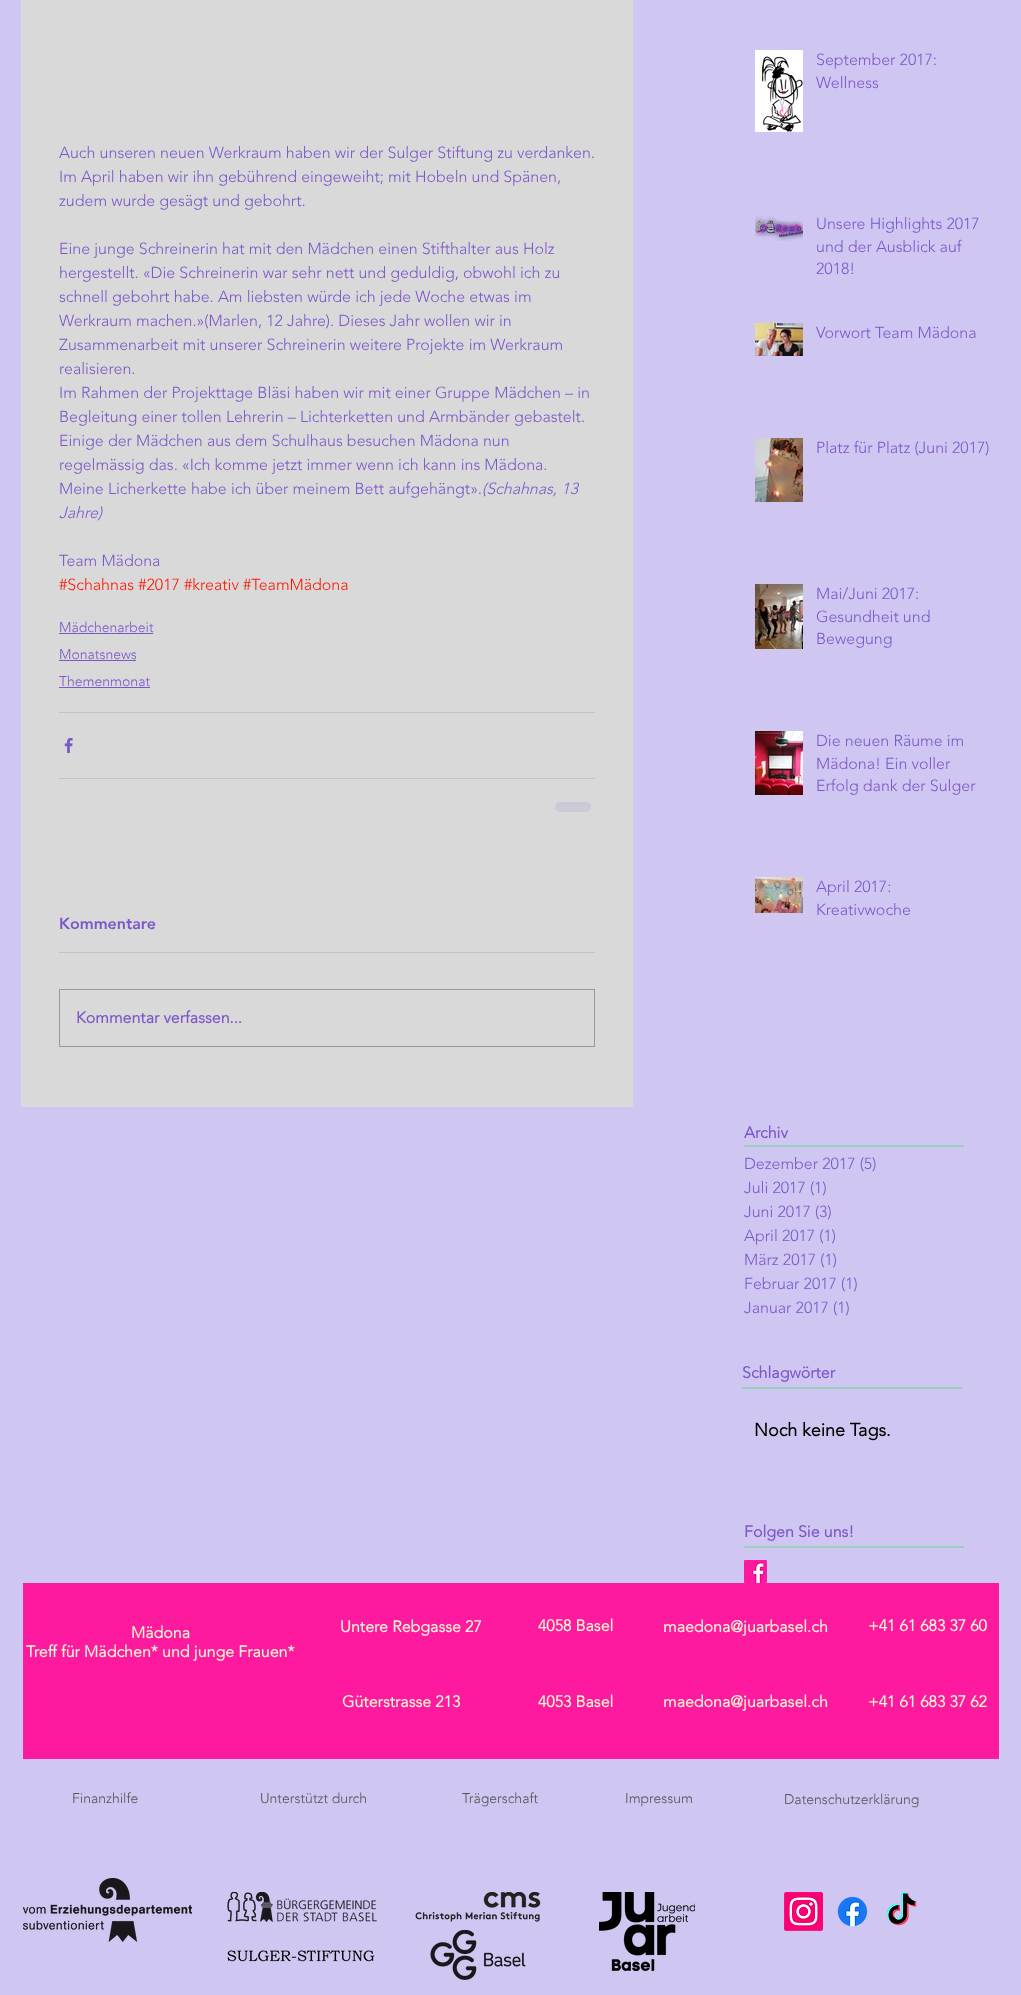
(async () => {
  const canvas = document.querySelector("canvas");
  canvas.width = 1021;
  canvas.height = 1995;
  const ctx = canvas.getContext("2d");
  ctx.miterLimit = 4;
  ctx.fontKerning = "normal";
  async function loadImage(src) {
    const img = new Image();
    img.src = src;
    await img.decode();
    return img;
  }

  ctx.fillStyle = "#cfc7f2";
  ctx.fillRect(0, 0, 1021, 1995);
  for (const [x, y, w, h, color] of [
    [21, 0, 612, 1107, "#d9d9d9"],
    [59, 633, 94, 1, "#7c57c9"],
    [59, 660, 77, 1, "#7c57c9"],
    [59, 687, 91, 1, "#7c57c9"],
    [59, 712, 536, 1, "#c6bfd6"],
  ]) {
    ctx.fillStyle = color;
    ctx.fillRect(x, y, w, h);
  }
  ctx.drawImage(await loadImage("img/1.png"), 64, 738, 9, 15);
  ctx.fillRect(59, 778, 536, 1);
  ctx.fillStyle = "#cec9d7";
  ctx.beginPath();
  ctx.roundRect(555, 802, 36, 10, 5);
  ctx.fill();
  ctx.fillStyle = "#c6bfd6";
  ctx.fillRect(59, 952, 536, 1);
  ctx.strokeStyle = "#989898";
  ctx.strokeRect(59.5, 989.5, 535, 57);
  ctx.drawImage(await loadImage("img/2.png"), 755, 50, 48, 82);
  ctx.drawImage(await loadImage("img/3.png"), 755, 216, 48, 25);
  ctx.drawImage(await loadImage("img/4.png"), 756, 220, 47, 18);
  ctx.drawImage(await loadImage("img/5.png"), 755, 323, 48, 33);
  ctx.drawImage(await loadImage("img/6.png"), 755, 438, 48, 64);
  ctx.drawImage(await loadImage("img/7.png"), 755, 584, 48, 65);
  ctx.drawImage(await loadImage("img/8.png"), 755, 731, 48, 64);
  ctx.drawImage(await loadImage("img/9.png"), 755, 877, 48, 36);
  for (const [x, y, w, h, color] of [
    [744, 1145, 220, 2, "#9acebf"],
    [742, 1387, 220, 2, "#9acebf"],
    [744, 1546, 220, 2, "#9acebf"],
  ]) {
    ctx.fillStyle = color;
    ctx.fillRect(x, y, w, h);
  }
  ctx.drawImage(await loadImage("img/10.png"), 744, 1560, 23, 23);
  ctx.fillStyle = "#fd1a9e";
  ctx.fillRect(23, 1583, 976, 176);
  ctx.drawImage(await loadImage("img/11.png"), 23, 1878, 169, 64);
  ctx.drawImage(await loadImage("img/12.png"), 227, 1892, 150, 30);
  ctx.drawImage(await loadImage("img/13.png"), 415, 1892, 126, 30);
  ctx.drawImage(await loadImage("img/14.png"), 599, 1892, 96, 79);
  ctx.drawImage(await loadImage("img/15.png"), 784, 1892, 39, 39);
  ctx.drawImage(await loadImage("img/16.png"), 837, 1896, 31, 31);
  ctx.drawImage(await loadImage("img/17.png"), 886, 1892, 31, 34);
  ctx.drawImage(await loadImage("img/18.png"), 227, 1950, 148, 12);
  ctx.drawImage(await loadImage("img/19.png"), 430, 1930, 96, 50);
  ctx.font = "300 16px 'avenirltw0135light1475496'";
  ctx.fillStyle = "#7c57c9";
  for (const [text, x, y] of [
    ["Auch unseren neuen Werkraum haben wir der Sulger Stiftung zu verdanken.", 59, 158],
    ["Im April haben wir ihn gebührend eingeweiht; mit Hobeln und Spänen,", 59, 182],
    ["zudem wurde gesägt und gebohrt.", 59, 206],
    ["Eine junge Schreinerin hat mit den Mädchen einen Stifthalter aus Holz", 59, 254],
    ["hergestellt. «Die Schreinerin war sehr nett und geduldig, obwohl ich zu", 59, 278],
    ["schnell gebohrt habe. Am liebsten würde ich jede Woche etwas im", 59, 302],
    ["Werkraum machen.»(Marlen, 12 Jahre). Dieses Jahr wollen wir in", 59, 326],
    ["Zusammenarbeit mit unserer Schreinerin weitere Projekte im Werkraum", 59, 350],
    ["realisieren.", 59, 374],
    ["Im Rahmen der Projekttage Bläsi haben wir mit einer Gruppe Mädchen – in", 59, 398],
    ["Begleitung einer tollen Lehrerin – Lichterketten und Armbänder gebastelt.", 59, 422],
    ["Einige der Mädchen aus dem Schulhaus besuchen Mädona nun", 59, 446],
    ["regelmässig das. «Ich komme jetzt immer wenn ich kann ins Mädona.", 59, 470],
    ["Meine Licherkette habe ich über meinem Bett aufgehängt».", 59, 494],
  ]) {
    ctx.fillText(text, x, y);
  }
  ctx.font = "italic 300 16px 'avenirltw0135light1475496'";
  ctx.fillText("(Schahnas, 13", 482, 494);
  ctx.fillText("Jahre)", 59, 518);
  ctx.font = "300 16px 'avenirltw0135light1475496'";
  ctx.fillText("Team Mädona", 59, 566);
  ctx.fillStyle = "#ff1500";
  ctx.fillText("#Schahnas #2017 #kreativ #TeamMädona", 59, 590);
  ctx.font = "300 14px 'avenirltw0135light1475496'";
  ctx.fillStyle = "#7c57c9";
  for (const [text, x, y] of [
    ["Mädchenarbeit", 59, 632],
    ["Monatsnews", 59, 659],
    ["Themenmonat", 59, 686],
  ]) {
    ctx.fillText(text, x, y);
  }
  ctx.font = "900 16px 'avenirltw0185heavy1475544'";
  ctx.fillText("Kommentare", 59, 929);
  ctx.font = "bold 16px 'avenirltw0135light1475496'";
  ctx.fillText("Kommentar verfassen...", 76, 1023);
  ctx.font = "300 16px 'avenirltw0135light1475496'";
  for (const [text, x, y] of [
    ["September 2017:", 816, 65],
    ["Wellness", 816, 88],
    ["Unsere Highlights 2017", 816, 229],
    ["und der Ausblick auf", 816, 252],
    ["2018!", 816, 274],
    ["Vorwort Team Mädona", 816, 338],
    ["Platz für Platz (Juni 2017)", 816, 453],
    ["Mai/Juni 2017:", 816, 599],
    ["Gesundheit und", 816, 622],
    ["Bewegung", 816, 644],
    ["Die neuen Räume im", 816, 746],
    ["Mädona! Ein voller", 816, 769],
    ["Erfolg dank der Sulger", 816, 791],
    ["April 2017:", 816, 892],
    ["Kreativwoche", 816, 915],
  ]) {
    ctx.fillText(text, x, y);
  }
  ctx.font = "bold 16px 'avenirltw0135light1475496'";
  ctx.fillText("Archiv", 744, 1138);
  ctx.font = "300 16px 'avenirltw0135light1475496'";
  for (const [text, x, y] of [
    ["Dezember 2017 (5)", 744, 1169],
    ["Juli 2017 (1)", 744, 1193],
    ["Juni 2017 (3)", 744, 1217],
    ["April 2017 (1)", 744, 1241],
    ["März 2017 (1)", 744, 1265],
    ["Februar 2017 (1)", 744, 1289],
    ["Januar 2017 (1)", 744, 1313],
  ]) {
    ctx.fillText(text, x, y);
  }
  ctx.font = "bold 16px 'avenirltw0135light1475496'";
  ctx.fillText("Schlagwörter", 742, 1378);
  ctx.font = "bold 18px 'avenirltw0135light1475496'";
  ctx.fillStyle = "#000000";
  ctx.fillText("Noch keine Tags.", 754, 1436);
  ctx.font = "bold 16px 'avenirltw0135light1475496'";
  ctx.fillStyle = "#7c57c9";
  ctx.fillText("Folgen Sie uns!", 744, 1537);
  ctx.fillStyle = "#f5f5d0";
  for (const [text, x, y] of [
    ["Mädona", 131, 1638],
    ["Treff für Mädchen* und junge Frauen*", 26, 1657],
    ["Untere Rebgasse 27", 340, 1632],
    ["4058 Basel", 538, 1631],
    ["maedona@juarbasel.ch", 663, 1632],
    ["+41 61 683 37 60", 868, 1631],
    ["Güterstrasse 213", 342, 1707],
    ["4053 Basel", 538, 1707],
    ["maedona@juarbasel.ch", 663, 1707],
    ["+41 61 683 37 62", 868, 1707],
  ]) {
    ctx.fillText(text, x, y);
  }
  ctx.font = "300 14px 'avenirltw0135light1475496'";
  ctx.fillStyle = "#545454";
  for (const [text, x, y] of [
    ["Finanzhilfe", 72, 1803],
    ["Unterstützt durch", 260, 1803],
    ["Trägerschaft", 462, 1803],
    ["Impressum", 625, 1803],
    ["Datenschutzerklärung", 784, 1804],
  ]) {
    ctx.fillText(text, x, y);
  }
})();
